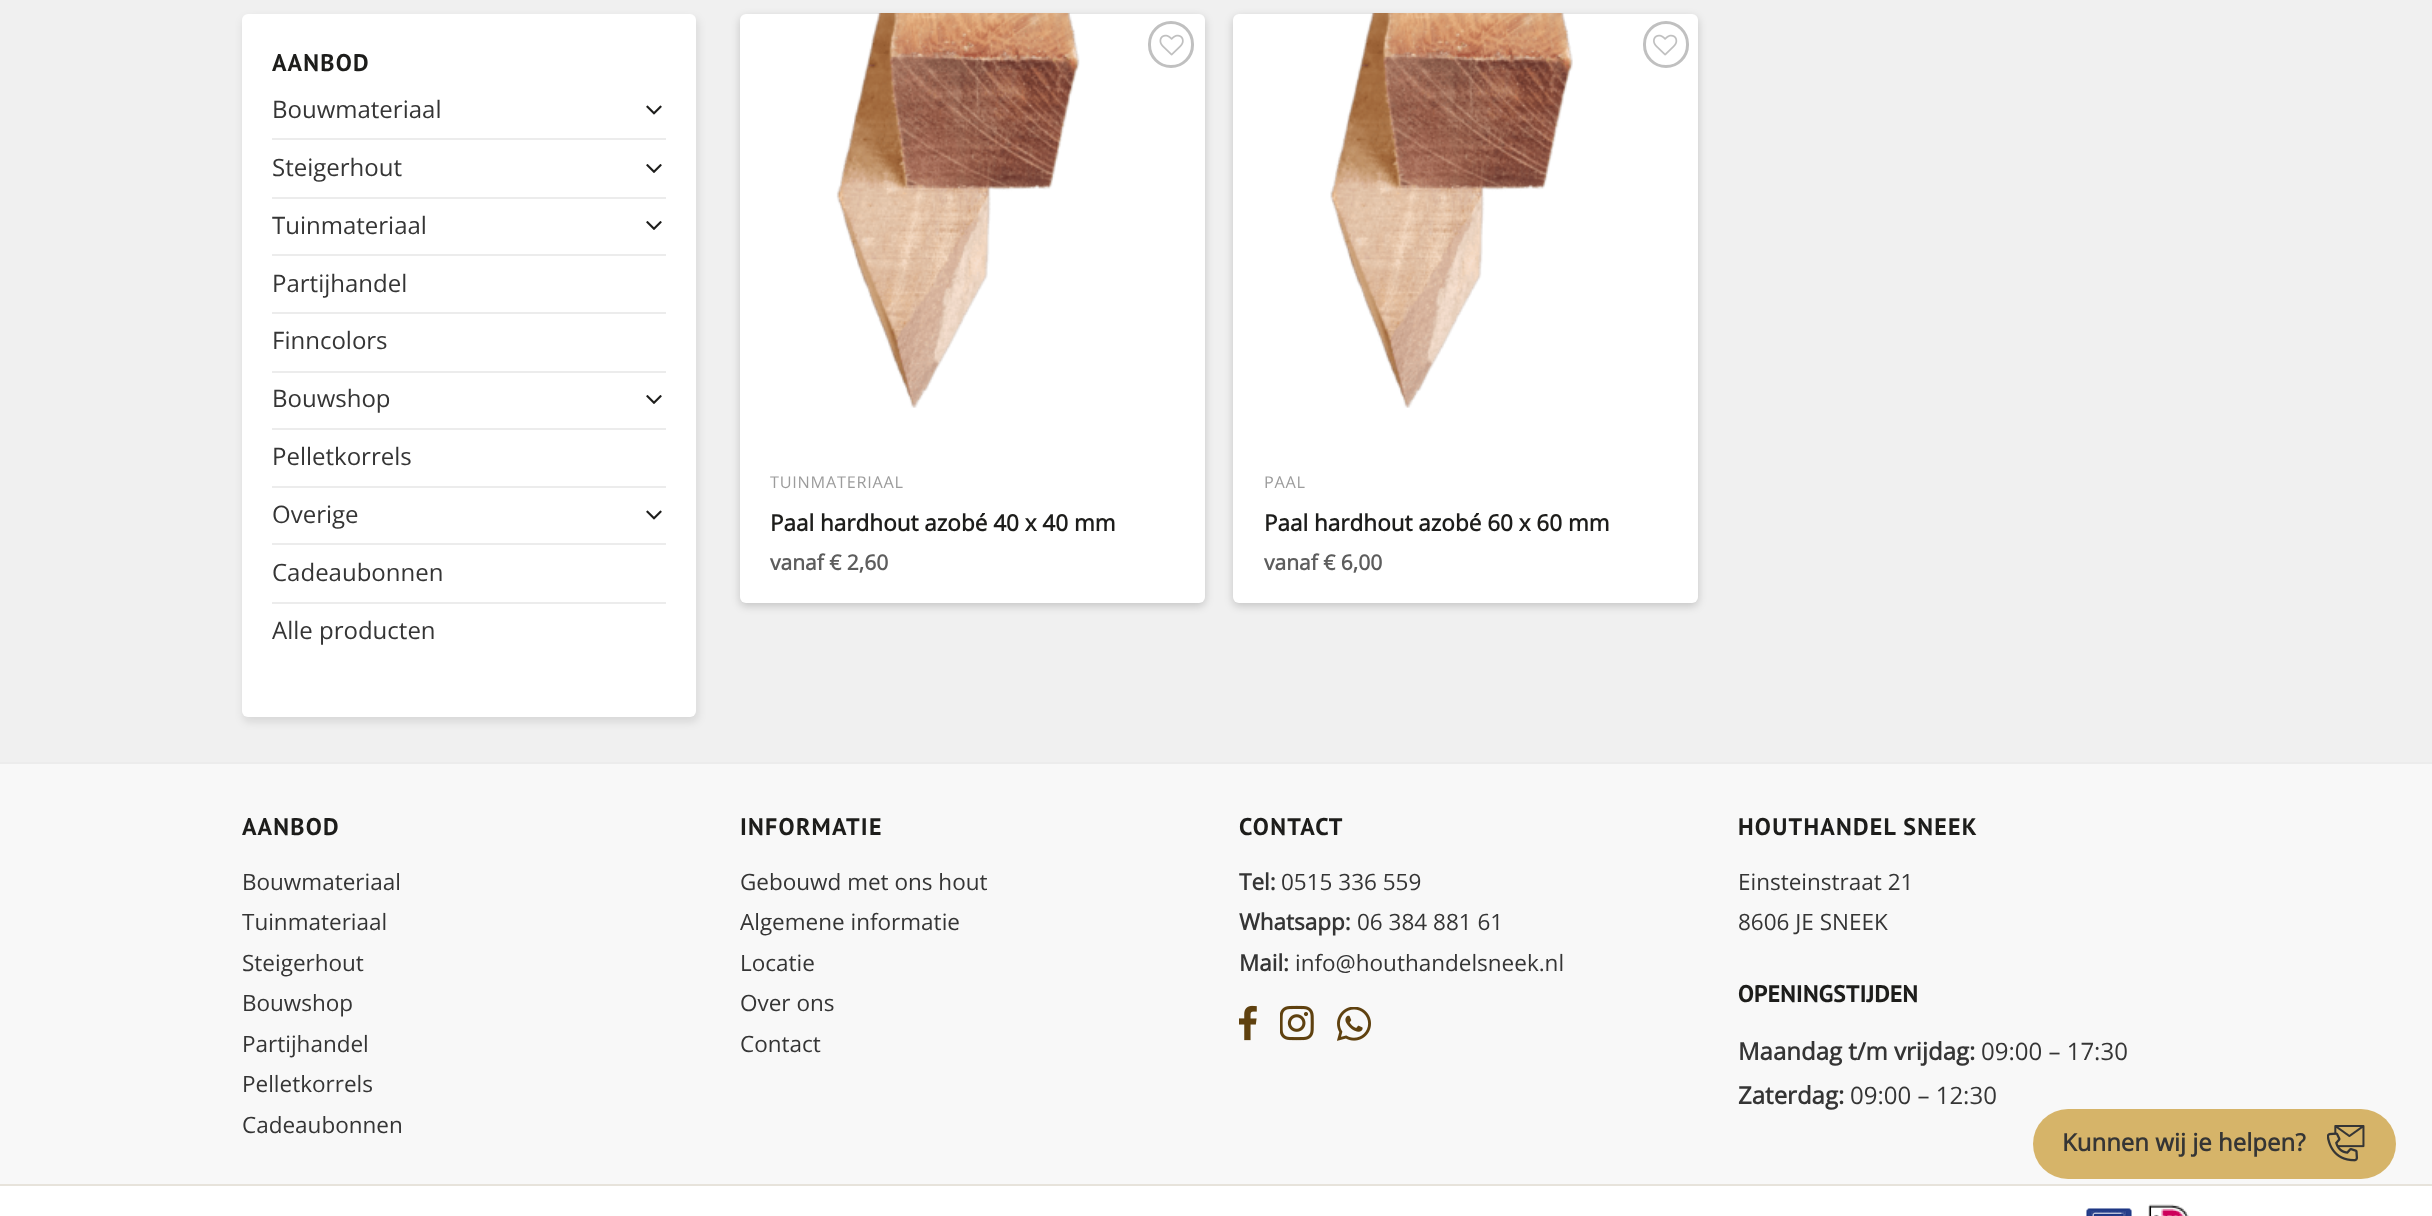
(async () => {
  const canvas = document.querySelector("canvas");
  canvas.width = 2432;
  canvas.height = 1216;
  const ctx = canvas.getContext("2d");
  ctx.miterLimit = 4;
  ctx.fontKerning = "normal";
  async function loadImage(src) {
    const img = new Image();
    img.src = src;
    await img.decode();
    return img;
  }

  ctx.fillStyle = "#f0f0f0";
  ctx.fillRect(0, 0, 2432, 1216);
  ctx.fillStyle = "rgba(0, 0, 0, 0.1)";
  ctx.filter = "blur(4.5px)";
  ctx.beginPath();
  ctx.roundRect(243, 18, 455, 704, 6);
  ctx.fill();
  ctx.filter = "none";
  ctx.fillStyle = "#ffffff";
  ctx.beginPath();
  ctx.roundRect(242, 14, 454, 703, 6);
  ctx.fill();
  ctx.drawImage(await loadImage("img/1.png"), 646, 105, 16, 10);
  ctx.fillStyle = "#ececec";
  ctx.fillRect(272, 138, 394, 2);
  ctx.drawImage(await loadImage("img/2.png"), 646, 164, 16, 9);
  ctx.fillRect(272, 197, 394, 2);
  ctx.drawImage(await loadImage("img/2.png"), 646, 221, 16, 9);
  for (const [x, y, w, h, color] of [
    [272, 254, 394, 2, "#ececec"],
    [272, 312, 394, 2, "#ececec"],
    [272, 371, 394, 2, "#ececec"],
  ]) {
    ctx.fillStyle = color;
    ctx.fillRect(x, y, w, h);
  }
  ctx.drawImage(await loadImage("img/2.png"), 646, 395, 16, 9);
  ctx.fillRect(272, 428, 394, 2);
  ctx.fillRect(272, 486, 394, 2);
  ctx.drawImage(await loadImage("img/1.png"), 646, 510, 16, 10);
  ctx.fillRect(272, 543, 394, 2);
  ctx.fillRect(272, 602, 394, 2);
  ctx.fillStyle = "rgba(0, 0, 0, 0.18)";
  ctx.filter = "blur(4.5px)";
  ctx.beginPath();
  ctx.roundRect(740, 17, 465, 589, 6);
  ctx.fill();
  ctx.filter = "none";
  ctx.fillStyle = "#ffffff";
  ctx.beginPath();
  ctx.roundRect(740, 14, 465, 589, 6);
  ctx.fill();
  ctx.drawImage(await loadImage("img/3.png"), 836, 13, 244, 395);
  ctx.beginPath();
  ctx.roundRect(1149.5, 22.5, 43, 44, 21.5);
  ctx.strokeStyle = "#c0c0c0";
  ctx.lineWidth = 3;
  ctx.stroke();
  ctx.drawImage(await loadImage("img/4.png"), 1159, 34, 25, 22);
  ctx.fillStyle = "rgba(0, 0, 0, 0.18)";
  ctx.filter = "blur(4.5px)";
  ctx.beginPath();
  ctx.roundRect(1233, 17, 465, 589, 6);
  ctx.fill();
  ctx.filter = "none";
  ctx.fillStyle = "#ffffff";
  ctx.beginPath();
  ctx.roundRect(1233, 14, 465, 589, 6);
  ctx.fill();
  ctx.drawImage(await loadImage("img/5.png"), 1330, 13, 243, 395);
  ctx.beginPath();
  ctx.roundRect(1644.5, 22.5, 43, 44, 21.5);
  ctx.stroke();
  ctx.drawImage(await loadImage("img/6.png"), 1653, 34, 25, 22);
  ctx.fillStyle = "#f8f8f8";
  ctx.fillRect(0, 764, 2432, 420);
  ctx.fillStyle = "#ececec";
  ctx.fillRect(0, 762, 2432, 2);
  ctx.drawImage(await loadImage("img/7.png"), 1239, 1005, 18, 36);
  ctx.drawImage(await loadImage("img/8.png"), 1280, 1005, 34, 36);
  ctx.drawImage(await loadImage("img/9.png"), 1337, 1007, 34, 34);
  ctx.fillStyle = "#ffffff";
  ctx.fillRect(0, 1186, 2432, 30);
  ctx.fillStyle = "#e7e3db";
  ctx.fillRect(0, 1184, 2432, 2);
  ctx.drawImage(await loadImage("img/10.png"), 2086, 1208, 46, 8);
  ctx.drawImage(await loadImage("img/11.png"), 2148, 1204, 41, 12);
  ctx.fillStyle = "#d6b469";
  ctx.beginPath();
  ctx.roundRect(2033, 1109, 363, 70, 35);
  ctx.fill();
  ctx.drawImage(await loadImage("img/12.png"), 2327, 1125, 38, 37);
  ctx.letterSpacing = "1.25px";
  ctx.font = "bold 24px PT Sans";
  ctx.fillStyle = "#1d1d1b";
  ctx.fillText("AANBOD", 272, 71);
  ctx.letterSpacing = "0px";
  ctx.font = "24px Open Sans";
  ctx.fillStyle = "#353535";
  for (const [text, x, y] of [
    ["Bouwmateriaal", 272, 118],
    ["Steigerhout", 272, 176],
    ["Tuinmateriaal", 272, 234],
    ["Partijhandel", 272, 292],
    ["Finncolors", 272, 349],
    ["Bouwshop", 272, 407],
    ["Pelletkorrels", 272, 465],
    ["Overige", 272, 523],
    ["Cadeaubonnen", 272, 581],
    ["Alle producten", 272, 639],
  ]) {
    ctx.fillText(text, x, y);
  }
  ctx.letterSpacing = "0.75px";
  ctx.font = "16.25px Open Sans";
  ctx.fillStyle = "#9c9c9c";
  ctx.fillText("TUINMATERIAAL", 770, 488);
  ctx.letterSpacing = "0px";
  ctx.font = "bold 22.5px Open Sans";
  ctx.fillStyle = "#1d1d1b";
  ctx.fillText("Paal hardhout azobé 40 x 40 mm", 770, 531);
  ctx.font = "bold 21px Open Sans";
  ctx.fillStyle = "#5d5d5d";
  ctx.fillText("vanaf € 2,60", 770, 570);
  ctx.letterSpacing = "0.75px";
  ctx.font = "16.25px Open Sans";
  ctx.fillStyle = "#9c9c9c";
  ctx.fillText("PAAL", 1264, 488);
  ctx.letterSpacing = "0px";
  ctx.font = "bold 22.5px Open Sans";
  ctx.fillStyle = "#1d1d1b";
  ctx.fillText("Paal hardhout azobé 60 x 60 mm", 1264, 531);
  ctx.font = "bold 21px Open Sans";
  ctx.fillStyle = "#5d5d5d";
  ctx.fillText("vanaf € 6,00", 1264, 570);
  ctx.letterSpacing = "1.25px";
  ctx.font = "bold 24px PT Sans";
  ctx.fillStyle = "#1d1d1b";
  ctx.fillText("AANBOD", 242, 835);
  ctx.letterSpacing = "0px";
  ctx.font = "22.5px Open Sans";
  ctx.fillStyle = "#353535";
  for (const [text, x, y] of [
    ["Bouwmateriaal", 242, 890],
    ["Tuinmateriaal", 242, 930],
    ["Steigerhout", 242, 971],
    ["Bouwshop", 242, 1011],
    ["Partijhandel", 242, 1052],
    ["Pelletkorrels", 242, 1092],
    ["Cadeaubonnen", 242, 1133],
  ]) {
    ctx.fillText(text, x, y);
  }
  ctx.letterSpacing = "1.25px";
  ctx.font = "bold 24px PT Sans";
  ctx.fillStyle = "#1d1d1b";
  ctx.fillText("INFORMATIE", 740, 835);
  ctx.letterSpacing = "0px";
  ctx.font = "22.5px Open Sans";
  ctx.fillStyle = "#353535";
  for (const [text, x, y] of [
    ["Gebouwd met ons hout", 740, 890],
    ["Algemene informatie", 740, 930],
    ["Locatie", 740, 971],
    ["Over ons", 740, 1011],
    ["Contact", 740, 1052],
  ]) {
    ctx.fillText(text, x, y);
  }
  ctx.letterSpacing = "1.25px";
  ctx.font = "bold 24px PT Sans";
  ctx.fillStyle = "#1d1d1b";
  ctx.fillText("CONTACT", 1239, 835);
  ctx.letterSpacing = "0px";
  ctx.font = "bold 22.5px Open Sans";
  ctx.fillStyle = "#353535";
  ctx.fillText("Tel:", 1239, 890);
  ctx.font = "22.5px Open Sans";
  ctx.fillText("0515 336 559", 1281, 890);
  ctx.font = "bold 22.5px Open Sans";
  ctx.fillText("Whatsapp:", 1239, 930);
  ctx.font = "22.5px Open Sans";
  ctx.fillText("06 384 881 61", 1357, 930);
  ctx.font = "bold 22.5px Open Sans";
  ctx.fillText("Mail:", 1239, 971);
  ctx.font = "22.5px Open Sans";
  ctx.fillText("info@houthandelsneek.nl", 1295, 971);
  ctx.letterSpacing = "1.25px";
  ctx.font = "bold 24px PT Sans";
  ctx.fillStyle = "#1d1d1b";
  ctx.fillText("HOUTHANDEL SNEEK", 1738, 835);
  ctx.letterSpacing = "0px";
  ctx.font = "22.5px Open Sans";
  ctx.fillStyle = "#353535";
  ctx.fillText("Einsteinstraat 21", 1738, 890);
  ctx.fillText("8606 JE SNEEK", 1738, 930);
  ctx.font = "bold 24px PT Sans";
  ctx.fillStyle = "#1d1d1b";
  ctx.fillText("OPENINGSTIJDEN", 1738, 1002);
  ctx.font = "bold 24px Open Sans";
  ctx.fillStyle = "#353535";
  ctx.fillText("Maandag t/m vrijdag:", 1738, 1060);
  ctx.font = "24px Open Sans";
  ctx.fillText("09:00 – 17:30", 1981, 1060);
  ctx.font = "bold 24px Open Sans";
  ctx.fillText("Zaterdag:", 1738, 1104);
  ctx.font = "24px Open Sans";
  ctx.fillText("09:00 – 12:30", 1850, 1104);
  ctx.font = "bold 24px Open Sans";
  ctx.fillText("Kunnen wij je helpen?", 2062, 1151);
})();
